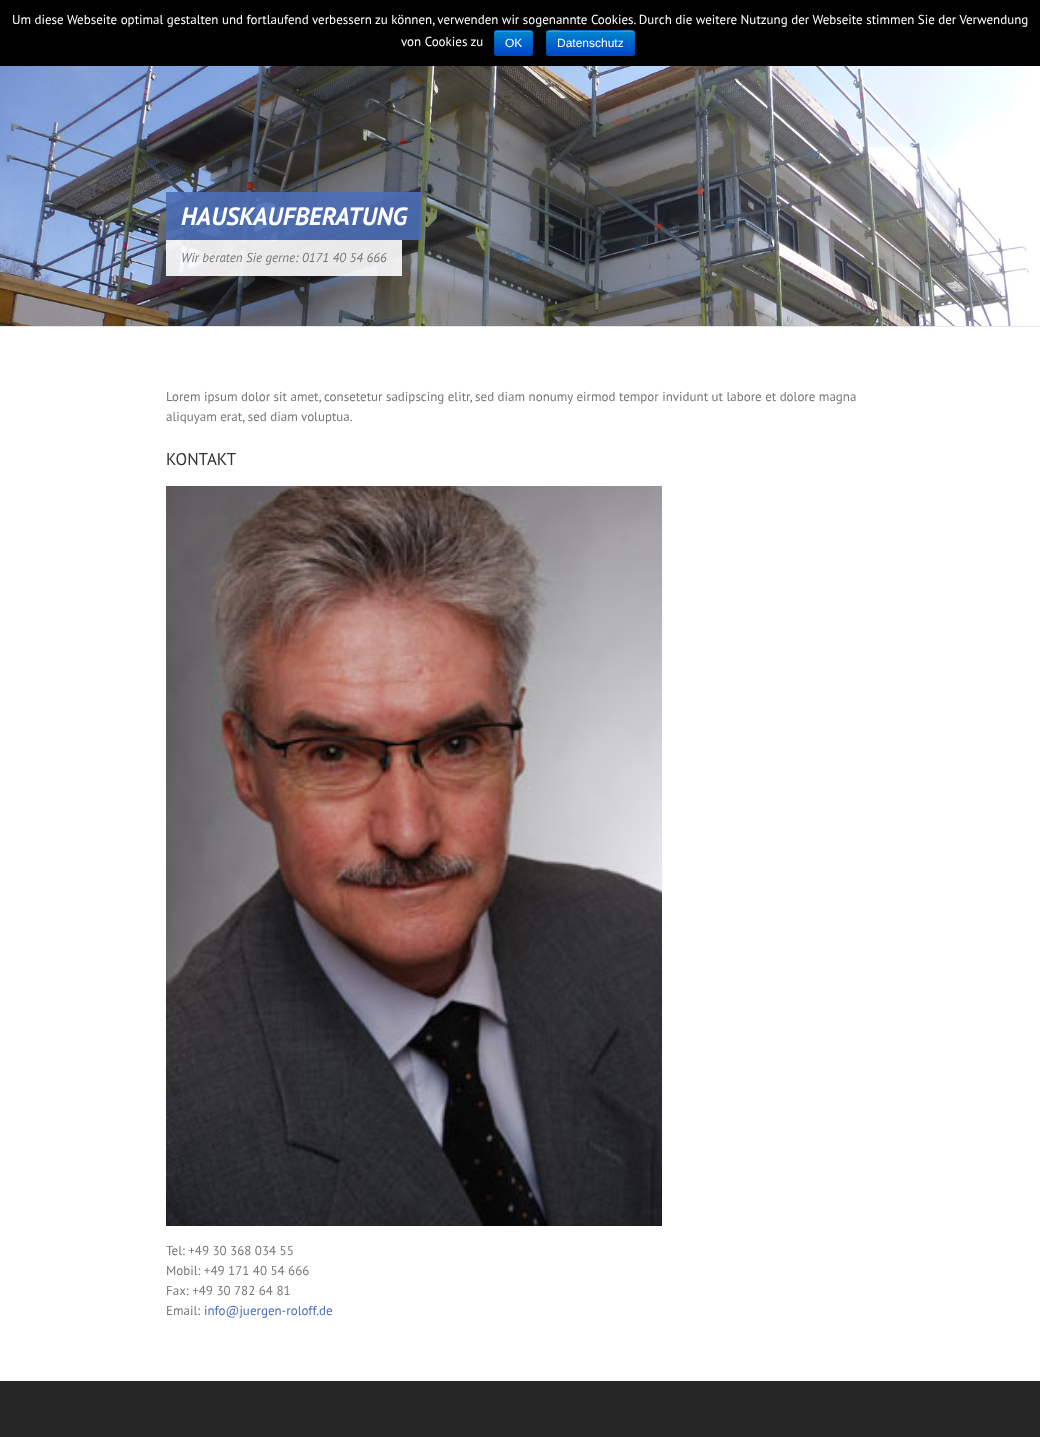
(async () => {
  const canvas = document.querySelector("canvas");
  canvas.width = 1040;
  canvas.height = 1437;
  const ctx = canvas.getContext("2d");
  ctx.miterLimit = 4;
  ctx.fontKerning = "normal";
  async function loadImage(src) {
    const img = new Image();
    img.src = src;
    await img.decode();
    return img;
  }
  let gradient, path;

  ctx.fillStyle = "#ffffff";
  ctx.fillRect(0, 0, 1040, 1437);
  ctx.fillStyle = "#000000";
  ctx.fillRect(0, 0, 1040, 66);
  ctx.fillStyle = "#006dcc";
  ctx.beginPath();
  ctx.roundRect(494, 30, 39, 26, 3);
  ctx.fill();
  ctx.save();
  ctx.beginPath();
  ctx.roundRect(494, 30, 39, 26, 3);
  ctx.clip();
  gradient = ctx.createLinearGradient(514, 31, 514, 55);
  gradient.addColorStop(0, "#0088cc");
  gradient.addColorStop(1, "#0044cc");
  ctx.fillStyle = gradient;
  ctx.fillRect(494, 31, 39, 24);
  ctx.restore();
  ctx.fillStyle = "rgba(255, 255, 255, 0.2)";
  path = new Path2D("M497 32H530C531 32 532 33 532 34C532 29.5 528.5 31 524.5 31H502.5C498.5 31 495 29.5 495 34C495 33 496 32 497 32Z");
  ctx.fill(path);
  path = new Path2D("M532 55C531.5 55 530.5 55.5 530 55.5H497C496.5 55.5 495.5 55 495 55");
  ctx.strokeStyle = "rgba(0, 0, 0, 0.25)";
  ctx.stroke(path);
  path = new Path2D("M495 55C495 54.5 494.5 53.5 494.5 53V33C494.5 32.5 495 31.5 495 31C495.5 31 496.5 30.5 497 30.5H530C530.5 30.5 531.5 31 532 31C532 31.5 532.5 32.5 532.5 33V53C532.5 53.5 532 54.5 532 55");
  ctx.strokeStyle = "rgba(0, 0, 0, 0.1)";
  ctx.stroke(path);
  ctx.fillStyle = "#006dcc";
  ctx.beginPath();
  ctx.roundRect(546, 30, 89, 26, 3);
  ctx.fill();
  ctx.save();
  ctx.beginPath();
  ctx.roundRect(546, 30, 89, 26, 3);
  ctx.clip();
  gradient = ctx.createLinearGradient(591, 31, 591, 55);
  gradient.addColorStop(0, "#0088cc");
  gradient.addColorStop(1, "#0044cc");
  ctx.fillStyle = gradient;
  ctx.fillRect(546, 31, 89, 24);
  ctx.restore();
  ctx.fillStyle = "rgba(255, 255, 255, 0.2)";
  path = new Path2D("M549 32H632C633 32 634 33 634 34C634 27 621 31 618 31H563C560 31 547 27 547 34C547 33 548 32 549 32Z");
  ctx.fill(path);
  path = new Path2D("M634 55L632 55.5H618C611 55.5 549.5 56.5 547.5 55H547");
  ctx.strokeStyle = "rgba(0, 0, 0, 0.25)";
  ctx.stroke(path);
  path = new Path2D("M547 55C545.5 53 546.5 48.5 546.5 46.5C546.5 27 543 30.5 563 30.5H618C638 30.5 634.5 27 634.5 46.5C634.5 48.5 635.5 53 634 55");
  ctx.strokeStyle = "rgba(0, 0, 0, 0.1)";
  ctx.stroke(path);
  ctx.fillStyle = "#e6e6e6";
  ctx.fillRect(0, 326, 1040, 1);
  ctx.drawImage(await loadImage("img/1.png"), 0, 66, 1029, 260);
  ctx.fillStyle = "rgba(75, 110, 183, 0.9)";
  ctx.fillRect(166, 192, 256, 48);
  ctx.fillStyle = "rgba(255, 255, 255, 0.9)";
  ctx.fillRect(166, 240, 236, 36);
  ctx.drawImage(await loadImage("img/2.png"), 166, 486, 496, 740);
  ctx.fillStyle = "#262626";
  ctx.fillRect(0, 1381, 1040, 56);
  ctx.font = "13px PT Sans";
  ctx.fillStyle = "#ffffff";
  ctx.fillText("Um diese Webseite optimal gestalten und fortlaufend verbessern zu können, verwenden wir sogenannte Cookies. Durch die weitere Nutzung der Webseite stimmen Sie der Verwendung", 12, 24);
  ctx.fillText("von Cookies zu", 401, 46);
  ctx.font = "12px Liberation Sans";
  ctx.fillText("OK", 505, 47);
  ctx.fillText("Datenschutz", 557, 47);
  ctx.font = "italic bold 25px PT Sans";
  ctx.fillText("HAUSKAUFBERATUNG", 181, 225);
  ctx.font = "italic 13px PT Sans";
  ctx.fillStyle = "#777777";
  ctx.fillText("Wir beraten Sie gerne: 0171 40 54 666", 181, 262);
  ctx.font = "13px PT Sans";
  ctx.fillText("Lorem ipsum dolor sit amet, consetetur sadipscing elitr, sed diam nonumy eirmod tempor invidunt ut labore et dolore magna", 166, 401);
  ctx.fillText("aliquyam erat, sed diam voluptua.", 166, 421);
  ctx.font = "17px PT Sans";
  ctx.fillStyle = "#333333";
  ctx.fillText("KONTAKT", 166, 465);
  ctx.font = "13px PT Sans";
  ctx.fillStyle = "#777777";
  for (const [text, x, y] of [
    ["Tel: +49 30 368 034 55", 166, 1255],
    ["Mobil: +49 171 40 54 666", 166, 1275],
    ["Fax: +49 30 782 64 81", 166, 1295],
    ["Email:", 166, 1315],
  ]) {
    ctx.fillText(text, x, y);
  }
  ctx.fillStyle = "#4b6eb7";
  ctx.fillText("info@juergen-roloff.de", 204, 1315);
})();
